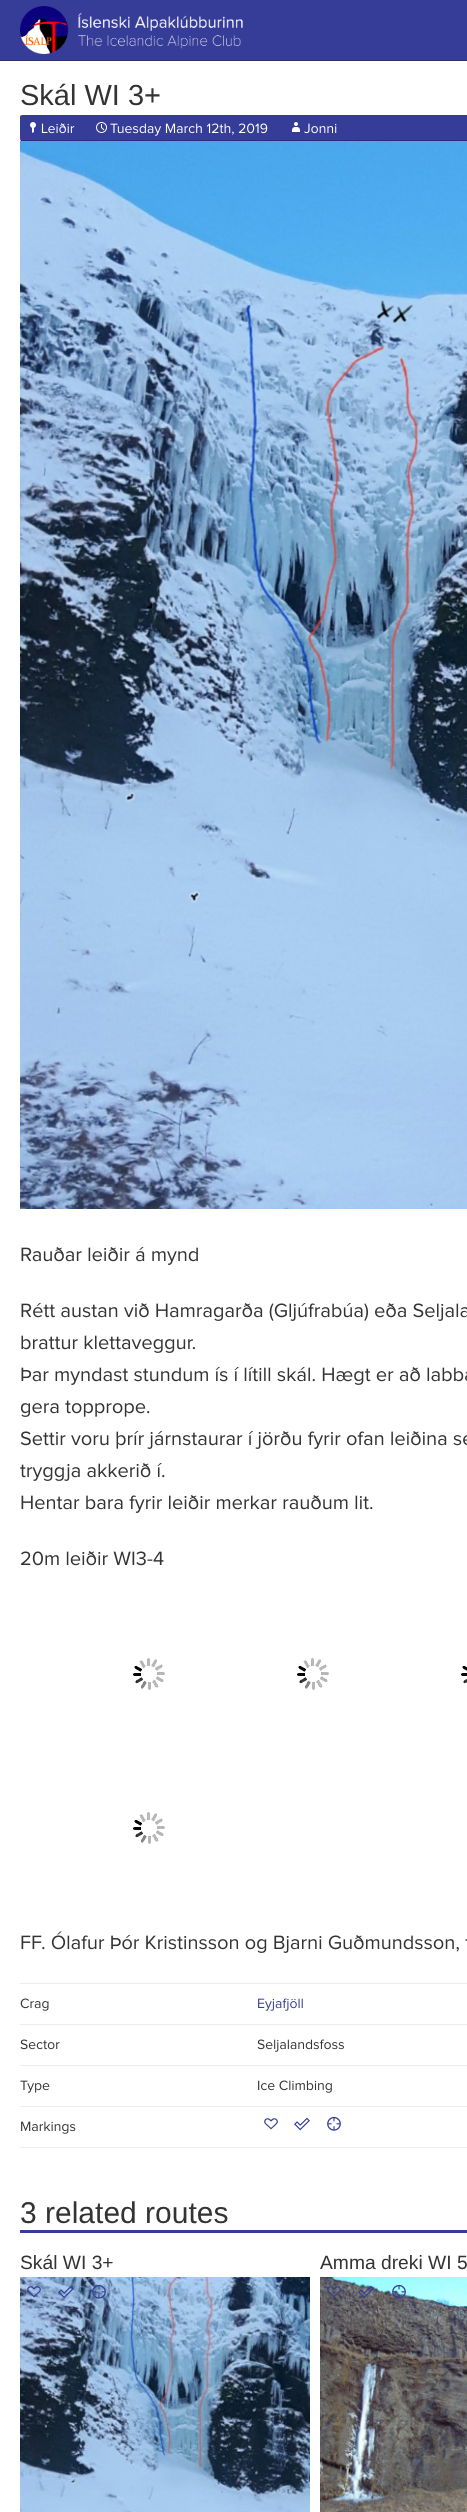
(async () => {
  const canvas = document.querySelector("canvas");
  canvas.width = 467;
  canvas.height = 2512;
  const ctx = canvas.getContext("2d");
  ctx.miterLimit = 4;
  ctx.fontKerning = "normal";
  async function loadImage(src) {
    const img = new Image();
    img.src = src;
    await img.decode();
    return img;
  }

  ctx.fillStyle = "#ffffff";
  ctx.fillRect(0, 0, 467, 2512);
  ctx.fillStyle = "#363d98";
  ctx.fillRect(0, 0, 467, 60);
  ctx.fillStyle = "#292e72";
  ctx.fillRect(0, 60, 467, 1);
  ctx.drawImage(await loadImage("img/1.png"), 20, 6, 223, 48);
  ctx.fillStyle = "#363d98";
  ctx.beginPath();
  ctx.roundRect(20, 115, 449, 26, 2);
  ctx.fill();
  ctx.fillStyle = "#292e72";
  ctx.fillRect(21, 140, 446, 1);
  ctx.drawImage(await loadImage("img/2.png"), 30, 122, 6, 11);
  ctx.drawImage(await loadImage("img/3.png"), 41, 123, 34, 11);
  ctx.drawImage(await loadImage("img/4.png"), 96, 122, 11, 11);
  ctx.drawImage(await loadImage("img/5.png"), 110, 123, 158, 13);
  ctx.drawImage(await loadImage("img/6.png"), 292, 122, 8, 10);
  ctx.drawImage(await loadImage("img/7.png"), 304, 123, 33, 11);
  ctx.drawImage(await loadImage("img/8.png"), 20, 141, 447, 1068);
  ctx.drawImage(await loadImage("img/9.png"), 21, 1247, 177, 18);
  ctx.drawImage(await loadImage("img/10.png"), 21, 1303, 446, 18);
  ctx.drawImage(await loadImage("img/11.png"), 21, 1335, 174, 18);
  ctx.drawImage(await loadImage("img/12.png"), 21, 1367, 446, 18);
  ctx.drawImage(await loadImage("img/13.png"), 20, 1400, 130, 17);
  ctx.drawImage(await loadImage("img/14.png"), 20, 1431, 447, 18);
  ctx.drawImage(await loadImage("img/15.png"), 20, 1463, 145, 18);
  ctx.drawImage(await loadImage("img/16.png"), 21, 1495, 352, 18);
  ctx.drawImage(await loadImage("img/17.png"), 21, 1551, 143, 15);
  ctx.drawImage(await loadImage("img/18.png"), 133, 1658, 32, 32);
  ctx.drawImage(await loadImage("img/18.png"), 297, 1658, 32, 32);
  ctx.drawImage(await loadImage("img/19.png"), 461, 1666, 6, 18);
  ctx.drawImage(await loadImage("img/18.png"), 133, 1812, 32, 32);
  ctx.drawImage(await loadImage("img/20.png"), 21, 1931, 446, 22);
  ctx.fillStyle = "#ededed";
  ctx.fillRect(20, 2147, 447, 1);
  ctx.fillRect(20, 1983, 447, 1);
  ctx.drawImage(await loadImage("img/21.png"), 258, 1998, 45, 13);
  ctx.drawImage(await loadImage("img/22.png"), 20, 1998, 29, 13);
  ctx.fillRect(20, 2024, 447, 1);
  ctx.drawImage(await loadImage("img/23.png"), 257, 2039, 87, 13);
  ctx.drawImage(await loadImage("img/24.png"), 20, 2039, 40, 11);
  ctx.fillRect(20, 2065, 447, 1);
  ctx.drawImage(await loadImage("img/25.png"), 258, 2080, 74, 13);
  ctx.drawImage(await loadImage("img/26.png"), 20, 2080, 30, 13);
  ctx.fillRect(20, 2106, 447, 1);
  ctx.drawImage(await loadImage("img/27.png"), 264, 2118, 14, 12);
  ctx.drawImage(await loadImage("img/28.png"), 294, 2117, 16, 14);
  ctx.drawImage(await loadImage("img/29.png"), 327, 2116, 14, 15);
  ctx.drawImage(await loadImage("img/30.png"), 21, 2121, 55, 13);
  ctx.fillStyle = "#363d98";
  ctx.fillRect(20, 2230, 447, 3);
  ctx.drawImage(await loadImage("img/31.png"), 20, 2277, 290, 235);
  ctx.drawImage(await loadImage("img/32.png"), 27, 2286, 14, 12);
  ctx.drawImage(await loadImage("img/33.png"), 58, 2285, 16, 14);
  ctx.drawImage(await loadImage("img/34.png"), 92, 2284, 14, 15);
  ctx.drawImage(await loadImage("img/35.png"), 320, 2277, 147, 235);
  ctx.drawImage(await loadImage("img/36.png"), 327, 2286, 14, 12);
  ctx.drawImage(await loadImage("img/37.png"), 358, 2285, 16, 14);
  ctx.drawImage(await loadImage("img/38.png"), 392, 2284, 14, 15);
  ctx.font = "29px Liberation Sans";
  ctx.fillStyle = "#333333";
  ctx.fillText("Skál WI 3+", 20, 105);
  ctx.font = "30px Liberation Sans";
  ctx.fillText("3 related routes", 20, 2223);
  ctx.font = "19.25px Liberation Sans";
  ctx.fillText("Skál WI 3+", 20, 2269);
  ctx.fillText("Amma dreki WI 5", 320, 2269);
})();
